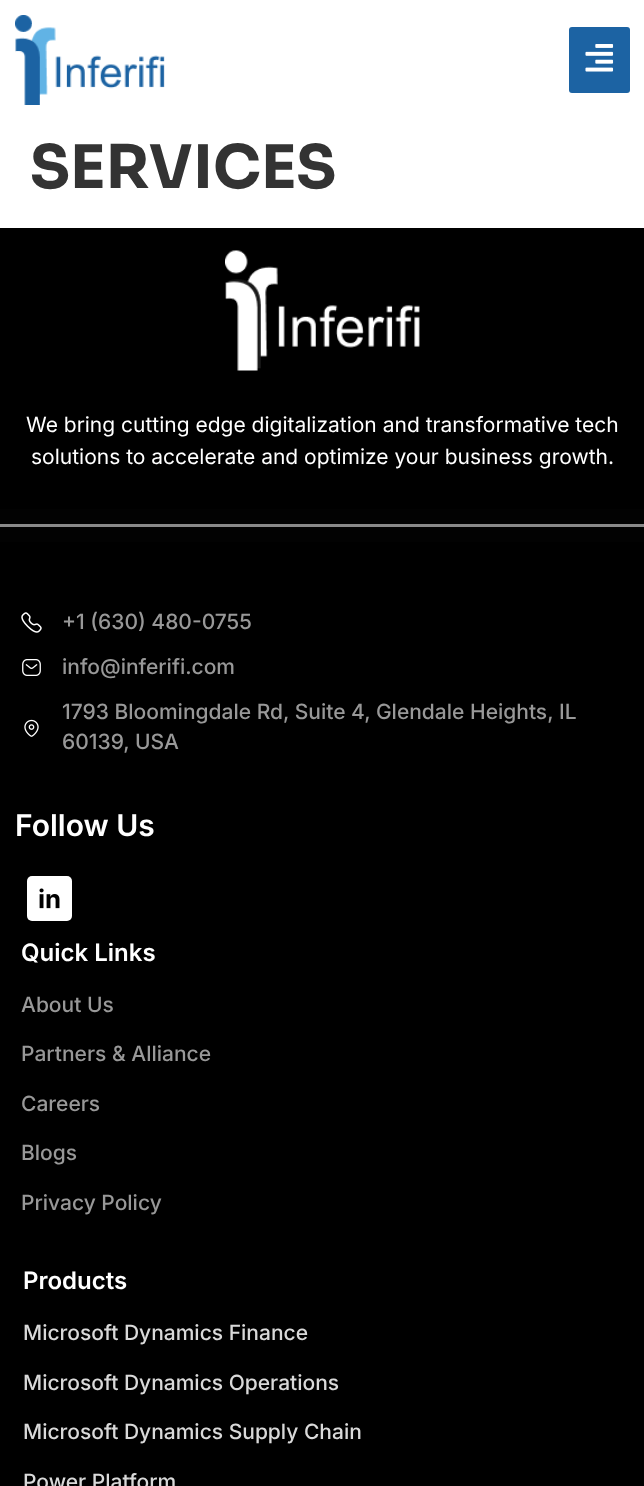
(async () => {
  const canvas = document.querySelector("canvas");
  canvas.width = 644;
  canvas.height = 1486;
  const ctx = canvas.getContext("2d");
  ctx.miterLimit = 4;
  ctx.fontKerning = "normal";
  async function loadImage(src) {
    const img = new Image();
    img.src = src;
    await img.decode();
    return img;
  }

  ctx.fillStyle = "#ffffff";
  ctx.fillRect(0, 0, 644, 1486);
  ctx.drawImage(await loadImage("img/1.png"), 15, 15, 150, 90);
  ctx.fillStyle = "#1c63a3";
  ctx.beginPath();
  ctx.roundRect(569, 27, 61, 66, 3);
  ctx.fill();
  ctx.drawImage(await loadImage("img/2.png"), 585, 44, 29, 28);
  ctx.fillStyle = "#000000";
  ctx.fillRect(0, 228, 644, 281);
  ctx.drawImage(await loadImage("img/3.png"), 225, 250, 195, 121);
  for (const [x, y, w, h, color] of [
    [0, 509, 644, 33, "#020202"],
    [0, 524, 644, 3, "#898989"],
    [0, 542, 644, 944, "#000000"],
  ]) {
    ctx.fillStyle = color;
    ctx.fillRect(x, y, w, h);
  }
  ctx.drawImage(await loadImage("img/4.png"), 21, 612, 21, 21);
  ctx.drawImage(await loadImage("img/5.png"), 22, 659, 19, 17);
  ctx.drawImage(await loadImage("img/6.png"), 24, 719, 15, 18);
  ctx.fillStyle = "#ffffff";
  ctx.beginPath();
  ctx.roundRect(27, 876, 45, 45, 5);
  ctx.fill();
  ctx.drawImage(await loadImage("img/7.png"), 39, 888, 21, 21);
  ctx.font = "bold 60px Sora";
  ctx.fillStyle = "#333333";
  ctx.fillText("SERVICES", 30, 188);
  ctx.font = "21px Inter";
  ctx.fillStyle = "#ffffff";
  ctx.fillText("We bring cutting edge digitalization and transformative tech", 26, 432);
  ctx.fillText("solutions to accelerate and optimize your business growth.", 31, 464);
  ctx.font = "500 21px Inter";
  ctx.fillStyle = "#989898";
  for (const [text, x, y] of [
    ["+1 (630) 480-0755", 62, 629],
    ["info@inferifi.com", 62, 674],
    ["1793 Bloomingdale Rd, Suite 4, Glendale Heights, IL", 62, 719],
    ["60139, USA", 62, 749],
  ]) {
    ctx.fillText(text, x, y);
  }
  ctx.font = "600 30px Inter";
  ctx.fillStyle = "#ffffff";
  ctx.fillText("Follow Us", 15, 836);
  ctx.font = "600 24px Inter";
  ctx.fillText("Quick Links", 21, 961);
  ctx.font = "500 21px Inter";
  ctx.fillStyle = "#989898";
  for (const [text, x, y] of [
    ["About Us", 21, 1012],
    ["Partners & Alliance", 21, 1061],
    ["Careers", 21, 1111],
    ["Blogs", 21, 1160],
    ["Privacy Policy", 21, 1210],
  ]) {
    ctx.fillText(text, x, y);
  }
  ctx.font = "600 24px Inter";
  ctx.fillStyle = "#ffffff";
  ctx.fillText("Products", 23, 1289);
  ctx.font = "500 21px Inter";
  ctx.fillStyle = "#d9d9d9";
  for (const [text, x, y] of [
    ["Microsoft Dynamics Finance", 23, 1340],
    ["Microsoft Dynamics Operations", 23, 1390],
    ["Microsoft Dynamics Supply Chain", 23, 1439],
    ["Power Platform", 23, 1489],
  ]) {
    ctx.fillText(text, x, y);
  }
})();
